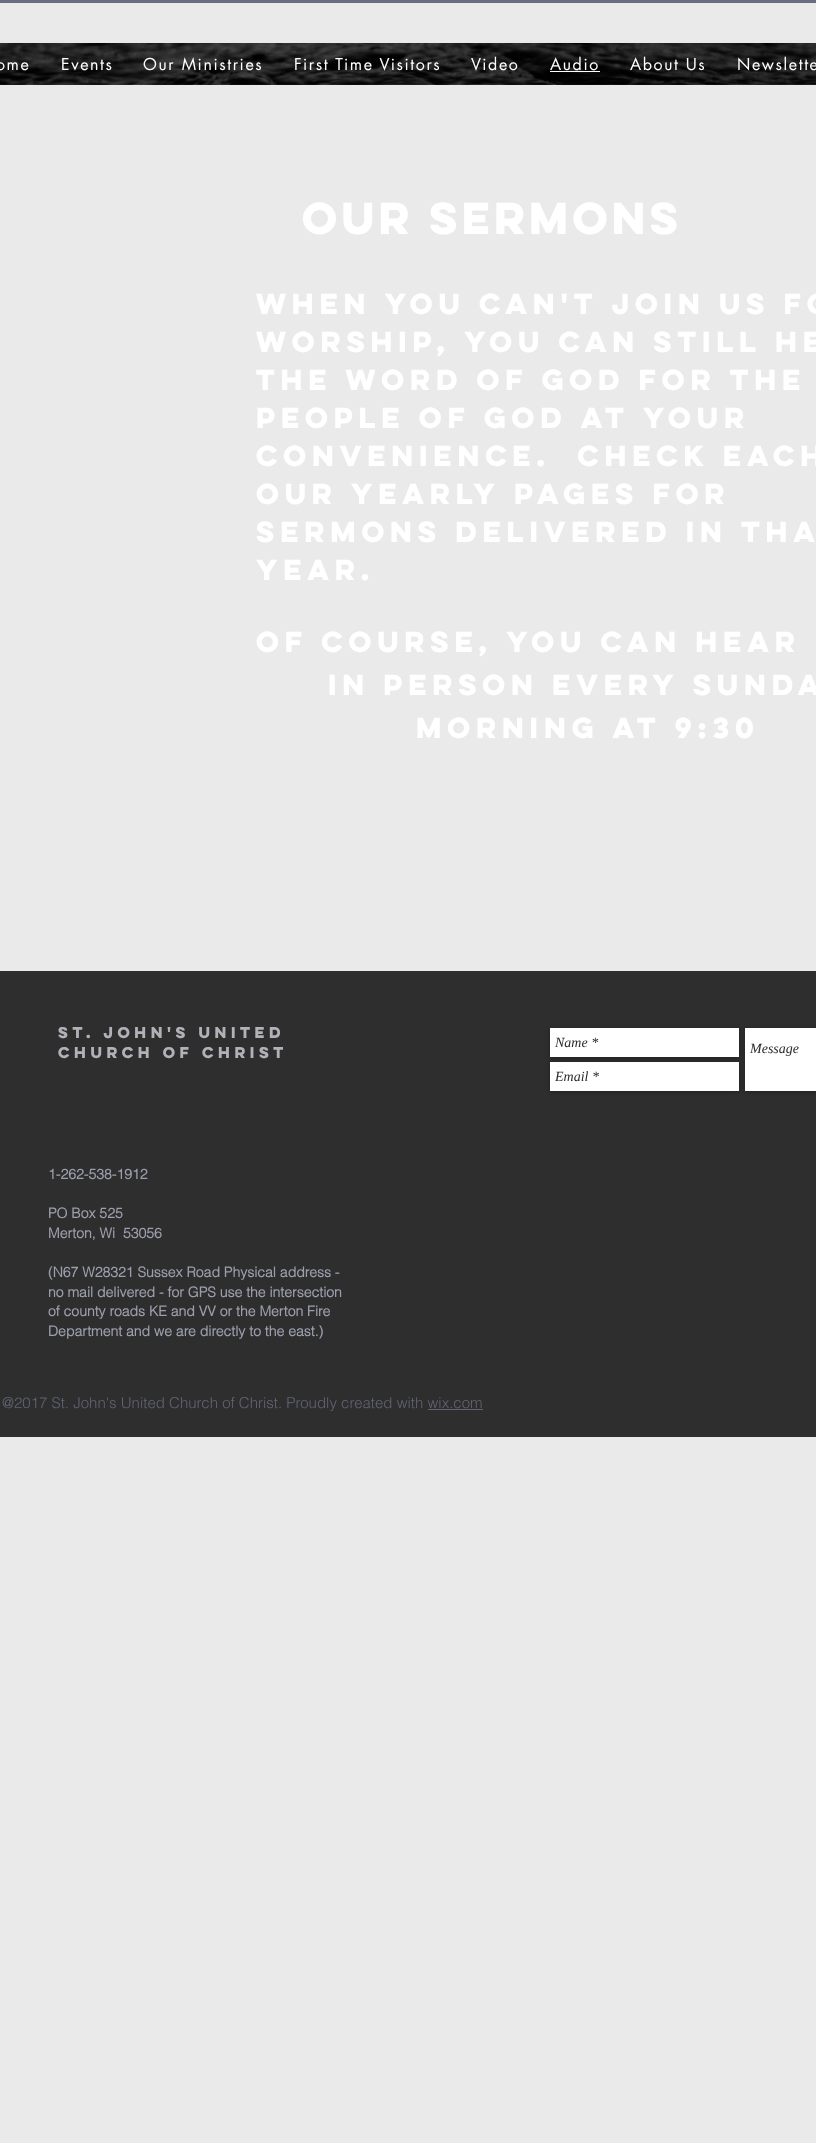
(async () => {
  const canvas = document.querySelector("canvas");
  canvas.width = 816;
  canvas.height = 2143;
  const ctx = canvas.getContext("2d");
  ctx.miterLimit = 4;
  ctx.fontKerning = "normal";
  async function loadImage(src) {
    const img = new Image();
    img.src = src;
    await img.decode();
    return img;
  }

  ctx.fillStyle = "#eaeaea";
  ctx.fillRect(0, 0, 816, 2143);
  ctx.fillStyle = "#6a6d7d";
  ctx.fillRect(0, 0, 816, 3);
  ctx.drawImage(await loadImage("img/1.png"), 0, 43, 816, 42);
  ctx.fillStyle = "#ffffff";
  ctx.fillRect(550, 71, 50, 1);
  ctx.fillStyle = "#2f2e2e";
  ctx.fillRect(0, 971, 816, 466);
  ctx.fillStyle = "rgba(0, 0, 0, 0.3)";
  ctx.filter = "blur(2px)";
  ctx.beginPath();
  ctx.rect(550, 1029, 189, 29);
  ctx.fill();
  ctx.filter = "none";
  ctx.fillStyle = "#ffffff";
  ctx.fillRect(550, 1028, 189, 29);
  ctx.fillStyle = "rgba(0, 0, 0, 0.3)";
  ctx.filter = "blur(2px)";
  ctx.beginPath();
  ctx.rect(550, 1063, 189, 29);
  ctx.fill();
  ctx.filter = "none";
  ctx.fillStyle = "#ffffff";
  ctx.fillRect(550, 1062, 189, 29);
  ctx.fillStyle = "rgba(0, 0, 0, 0.3)";
  ctx.filter = "blur(2px)";
  ctx.beginPath();
  ctx.rect(745, 1029, 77, 63);
  ctx.fill();
  ctx.filter = "none";
  ctx.fillStyle = "#ffffff";
  ctx.fillRect(745, 1028, 71, 63);
  ctx.fillStyle = "#616475";
  ctx.fillRect(428, 1409, 55, 1);
  ctx.letterSpacing = "1.6px";
  ctx.font = "16px futura";
  ctx.fillStyle = "#ffffff";
  for (const [text, x, y] of [
    ["ome", -4, 70],
    ["Events", 61, 70],
    ["Our Ministries", 143, 70],
    ["First Time Visitors", 294, 70],
    ["Video", 471, 70],
    ["Audio", 550, 70],
    ["About Us", 630, 70],
    ["Newslette", 737, 70],
  ]) {
    ctx.fillText(text, x, y);
  }
  ctx.letterSpacing = "-4.75px";
  ctx.font = "bold 40px 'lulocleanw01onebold'";
  ctx.fillText("OUR SERMONS", 302, 234);
  ctx.letterSpacing = "0px";
  ctx.font = "bold 26px 'lulocleanw01onebold'";
  for (const [text, x, y] of [
    ["When you can't join us fo", 256, 314],
    ["worship, you can still he", 256, 352],
    ["the Word of God for the", 256, 390],
    ["People of God at your", 256, 428],
    ["convenience.  Check each", 256, 466],
    ["our yearly pages for", 256, 504],
    ["Sermons delivered in tha", 256, 542],
    ["year.", 256, 580],
    ["Of course, you can hear", 256, 652],
    ["in person every Sunda", 328, 695],
    ["morning at 9:30", 416, 738],
  ]) {
    ctx.fillText(text, x, y);
  }
  ctx.letterSpacing = "1.4px";
  ctx.font = "bold 14px 'lulocleanw01onebold'";
  ctx.fillStyle = "#b0b2b8";
  ctx.fillText("St. John's United", 58, 1038);
  ctx.fillText("Church Of Christ", 58, 1058);
  ctx.letterSpacing = "0px";
  ctx.font = "italic 14px Liberation Serif";
  ctx.fillStyle = "#2a2a2a";
  for (const [text, x, y] of [
    ["Name *", 555, 1047],
    ["Message", 750, 1053],
    ["Email *", 555, 1081],
  ]) {
    ctx.fillText(text, x, y);
  }
  ctx.font = "bold 14px helvetica";
  ctx.fillStyle = "#9b9eac";
  for (const [text, x, y] of [
    ["1-262-538-1912", 48, 1179],
    ["PO Box 525", 48, 1218],
    ["Merton, Wi  53056", 48, 1238],
    ["(N67 W28321 Sussex Road Physical address -", 48, 1277],
    ["no mail delivered - for GPS use the intersection", 48, 1297],
    ["of county roads KE and VV or the Merton Fire", 48, 1316],
    ["Department and we are directly to the east.)", 48, 1336],
  ]) {
    ctx.fillText(text, x, y);
  }
  ctx.font = "300 15px helvetica";
  ctx.fillStyle = "#616475";
  ctx.fillText("@2017 St. John's United Church of Christ. Proudly created with wix.com", 2, 1408);
})();
